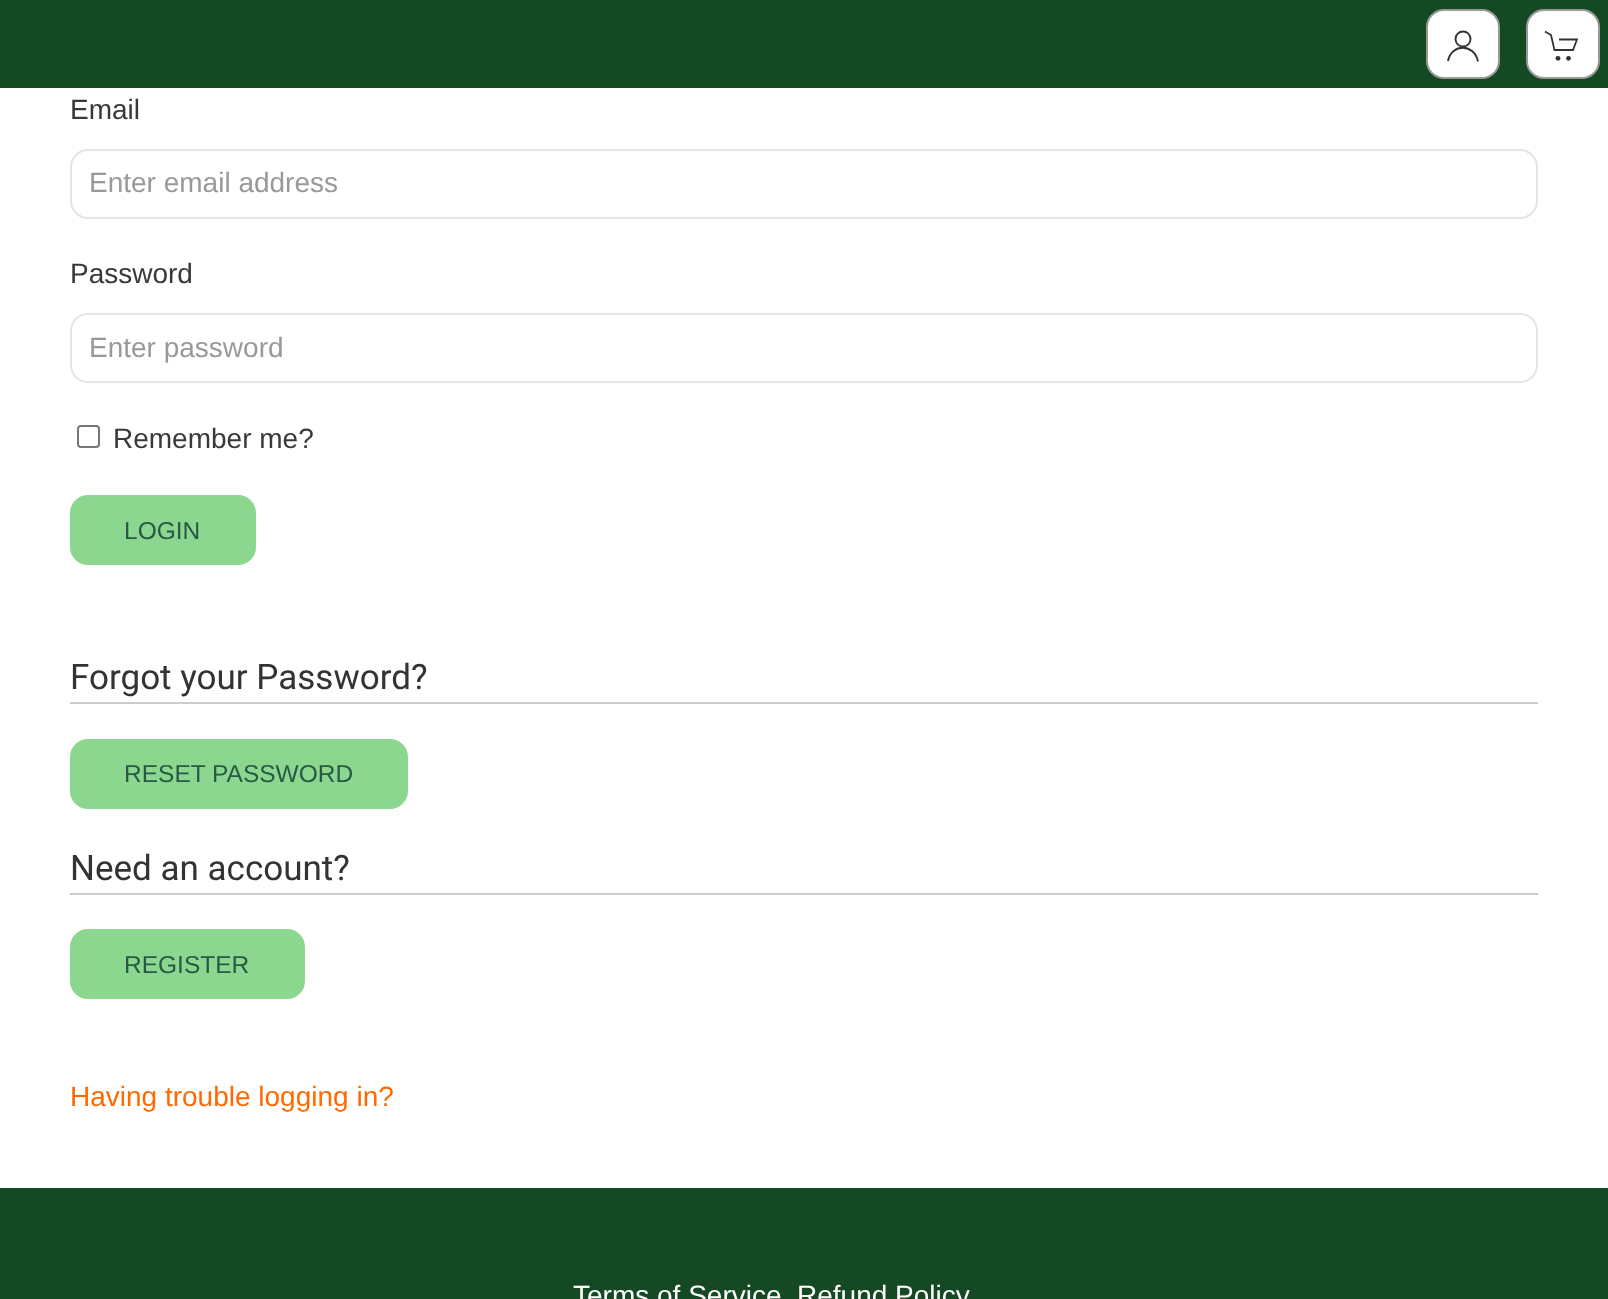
(async () => {
  const canvas = document.querySelector("canvas");
  canvas.width = 1608;
  canvas.height = 1299;
  const ctx = canvas.getContext("2d");
  ctx.miterLimit = 4;
  ctx.fontKerning = "normal";
  let path;

  ctx.fillStyle = "#ffffff";
  ctx.fillRect(0, 0, 1608, 1299);
  ctx.fillStyle = "#154923";
  ctx.fillRect(0, 0, 1608, 88);
  ctx.fillStyle = "#ffffff";
  ctx.beginPath();
  ctx.roundRect(1427, 10, 72, 68, 17);
  ctx.fill();
  ctx.strokeStyle = "#999999";
  ctx.lineWidth = 2;
  ctx.stroke();
  ctx.beginPath();
  ctx.arc(1463, 39, 7.5, 0, Math.PI * 2);
  ctx.strokeStyle = "#333333";
  ctx.lineWidth = 1.9;
  ctx.stroke();
  path = new Path2D("M1448 61C1451.5 43 1474.5 43.5 1478 61.5");
  ctx.stroke(path);
  ctx.beginPath();
  ctx.roundRect(1527, 10, 72, 68, 17);
  ctx.fill();
  ctx.strokeStyle = "#999999";
  ctx.lineWidth = 2;
  ctx.stroke();
  path = new Path2D("M1545 31.5L1551 35L1554.5 50H1573L1577 39.5H1559");
  ctx.strokeStyle = "#333333";
  ctx.lineWidth = 1.8;
  ctx.stroke(path);
  ctx.fillStyle = "#333333";
  ctx.beginPath();
  ctx.arc(1558, 58.3, 2.4, 0, Math.PI * 2);
  ctx.fill();
  ctx.beginPath();
  ctx.arc(1568.5, 58.3, 2.4, 0, Math.PI * 2);
  ctx.fill();
  ctx.beginPath();
  ctx.roundRect(71, 150, 1466, 68, 17);
  ctx.strokeStyle = "#e5e5e5";
  ctx.lineWidth = 2;
  ctx.stroke();
  ctx.beginPath();
  ctx.roundRect(71, 314, 1466, 68, 17);
  ctx.stroke();
  ctx.beginPath();
  ctx.roundRect(78, 426, 21, 21, 3);
  ctx.strokeStyle = "#767676";
  ctx.stroke();
  ctx.fillStyle = "#8cd790";
  ctx.beginPath();
  ctx.roundRect(71, 496, 184, 68, 17);
  ctx.fill();
  ctx.strokeStyle = "#8cd790";
  ctx.stroke();
  ctx.fillStyle = "#cccccc";
  ctx.fillRect(70, 702, 1468, 2);
  ctx.fillStyle = "#8cd790";
  ctx.beginPath();
  ctx.roundRect(71, 740, 336, 68, 17);
  ctx.fill();
  ctx.stroke();
  ctx.fillStyle = "#cccccc";
  ctx.fillRect(70, 893, 1468, 2);
  ctx.fillStyle = "#8cd790";
  ctx.beginPath();
  ctx.roundRect(71, 930, 233, 68, 17);
  ctx.fill();
  ctx.stroke();
  ctx.fillStyle = "#154923";
  ctx.fillRect(0, 1188, 1608, 111);
  ctx.font = "28px Liberation Sans";
  ctx.fillStyle = "#373a36";
  ctx.fillText("Email", 70, 119);
  ctx.fillStyle = "#999999";
  ctx.fillText("Enter email address", 89, 192);
  ctx.fillStyle = "#373a36";
  ctx.fillText("Password", 70, 283);
  ctx.fillStyle = "#999999";
  ctx.fillText("Enter password", 89, 357);
  ctx.fillStyle = "#373a36";
  ctx.fillText("Remember me?", 113, 448);
  ctx.font = "24.5px Liberation Sans";
  ctx.fillStyle = "#285943";
  ctx.fillText("LOGIN", 124, 539);
  ctx.font = "35px Roboto";
  ctx.fillStyle = "#333333";
  ctx.fillText("Forgot your Password?", 70, 689);
  ctx.font = "24.5px Liberation Sans";
  ctx.fillStyle = "#285943";
  ctx.fillText("RESET PASSWORD", 124, 782);
  ctx.font = "35px Roboto";
  ctx.fillStyle = "#333333";
  ctx.fillText("Need an account?", 70, 880);
  ctx.font = "24.5px Liberation Sans";
  ctx.fillStyle = "#285943";
  ctx.fillText("REGISTER", 124, 973);
  ctx.font = "28px Liberation Sans";
  ctx.fillStyle = "#ff6900";
  ctx.fillText("Having trouble logging in?", 70, 1106);
  ctx.fillStyle = "#ffffff";
  ctx.fillText("Terms of Service", 573, 1305);
  ctx.fillText("Refund Policy", 797, 1305);
})();
